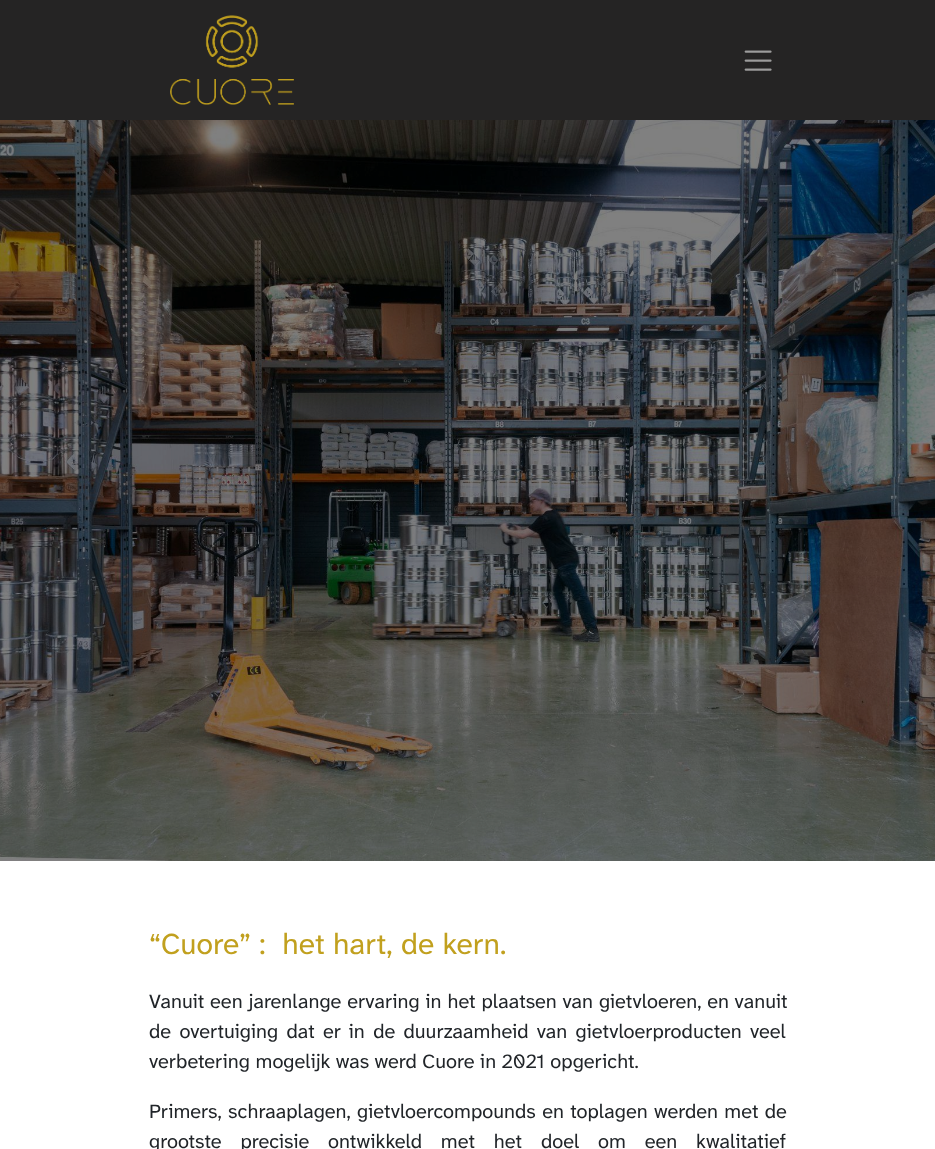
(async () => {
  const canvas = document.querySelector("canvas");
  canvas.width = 935;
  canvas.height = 1149;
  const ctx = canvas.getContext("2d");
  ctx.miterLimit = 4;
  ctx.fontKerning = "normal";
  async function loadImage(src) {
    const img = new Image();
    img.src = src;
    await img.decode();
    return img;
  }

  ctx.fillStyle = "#ffffff";
  ctx.fillRect(0, 0, 935, 1149);
  ctx.fillStyle = "#252424";
  ctx.fillRect(0, 0, 935, 120);
  ctx.drawImage(await loadImage("img/1.png"), 170, 15, 124, 90);
  ctx.drawImage(await loadImage("img/2.png"), 744, 50, 28, 21);
  ctx.drawImage(await loadImage("img/3.png"), 0, 120, 935, 741);
  ctx.font = "30px Atkinson Hyperlegible Next";
  ctx.fillStyle = "#c1a01e";
  ctx.fillText("“Cuore” :  het hart, de kern.", 149, 954);
  ctx.wordSpacing = "0.25px";
  ctx.font = "20px Atkinson Hyperlegible Next";
  ctx.fillStyle = "#212529";
  ctx.fillText("Vanuit een jarenlange ervaring in het plaatsen van gietvloeren, en vanuit", 149, 1008);
  ctx.wordSpacing = "2.75px";
  ctx.fillText("de overtuiging dat er in de duurzaamheid van gietvloerproducten veel", 149, 1038);
  ctx.wordSpacing = "0px";
  ctx.fillText("verbetering mogelijk was werd Cuore in 2021 opgericht.", 149, 1068);
  ctx.wordSpacing = "0.75px";
  ctx.fillText("Primers, schraaplagen, gietvloercompounds en toplagen werden met de", 149, 1118);
  ctx.wordSpacing = "13.25px";
  ctx.fillText("grootste precisie ontwikkeld met het doel om een kwalitatief", 149, 1148);
})();
